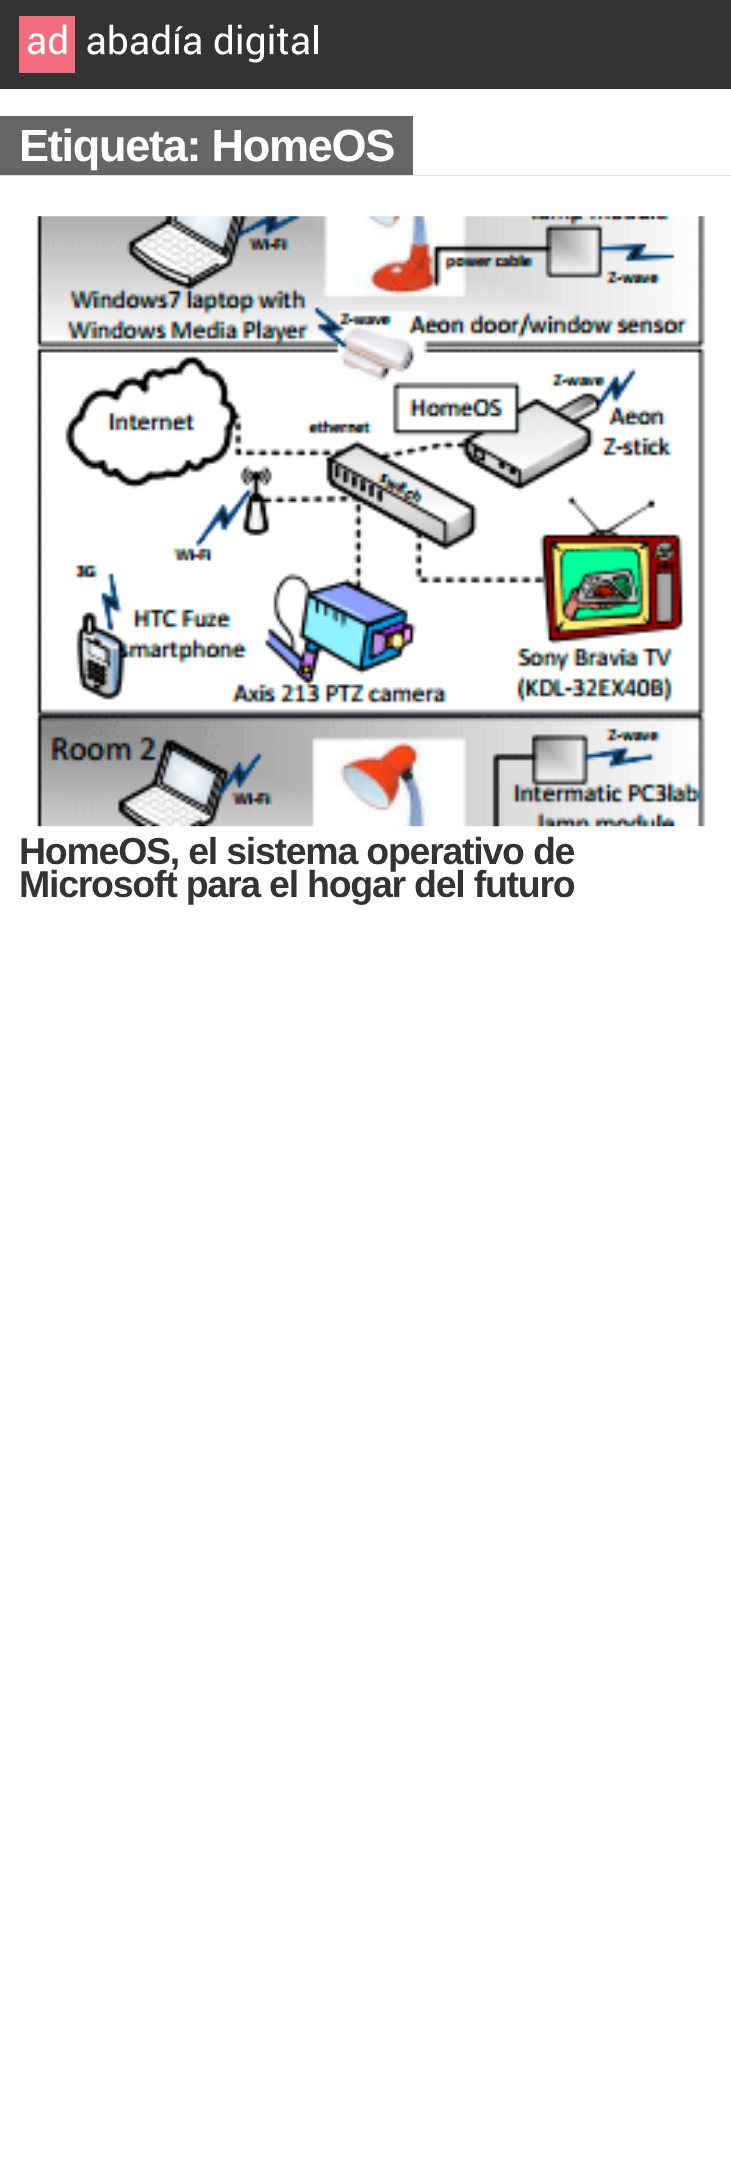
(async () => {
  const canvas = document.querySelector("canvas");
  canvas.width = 731;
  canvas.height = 2157;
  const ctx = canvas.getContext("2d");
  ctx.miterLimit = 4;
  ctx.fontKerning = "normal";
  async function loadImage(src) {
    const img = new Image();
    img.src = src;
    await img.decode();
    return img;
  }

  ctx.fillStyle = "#ffffff";
  ctx.fillRect(0, 0, 731, 2157);
  ctx.fillStyle = "#333333";
  ctx.fillRect(0, 0, 731, 89);
  ctx.drawImage(await loadImage("img/1.png"), 19, 16, 299, 57);
  ctx.fillStyle = "#666666";
  ctx.fillRect(0, 116, 413, 59);
  ctx.fillStyle = "#dddddd";
  ctx.fillRect(0, 175, 731, 1);
  ctx.drawImage(await loadImage("img/2.png"), 35, 216, 671, 611);
  ctx.letterSpacing = "-1.25px";
  ctx.font = "bold 45px Liberation Sans";
  ctx.fillStyle = "#ffffff";
  ctx.fillText("Etiqueta: HomeOS", 19, 161);
  ctx.font = "bold 37.5px Liberation Sans";
  ctx.fillStyle = "#333333";
  ctx.fillText("HomeOS, el sistema operativo de", 19, 864);
  ctx.fillText("Microsoft para el hogar del futuro", 19, 897);
})();
